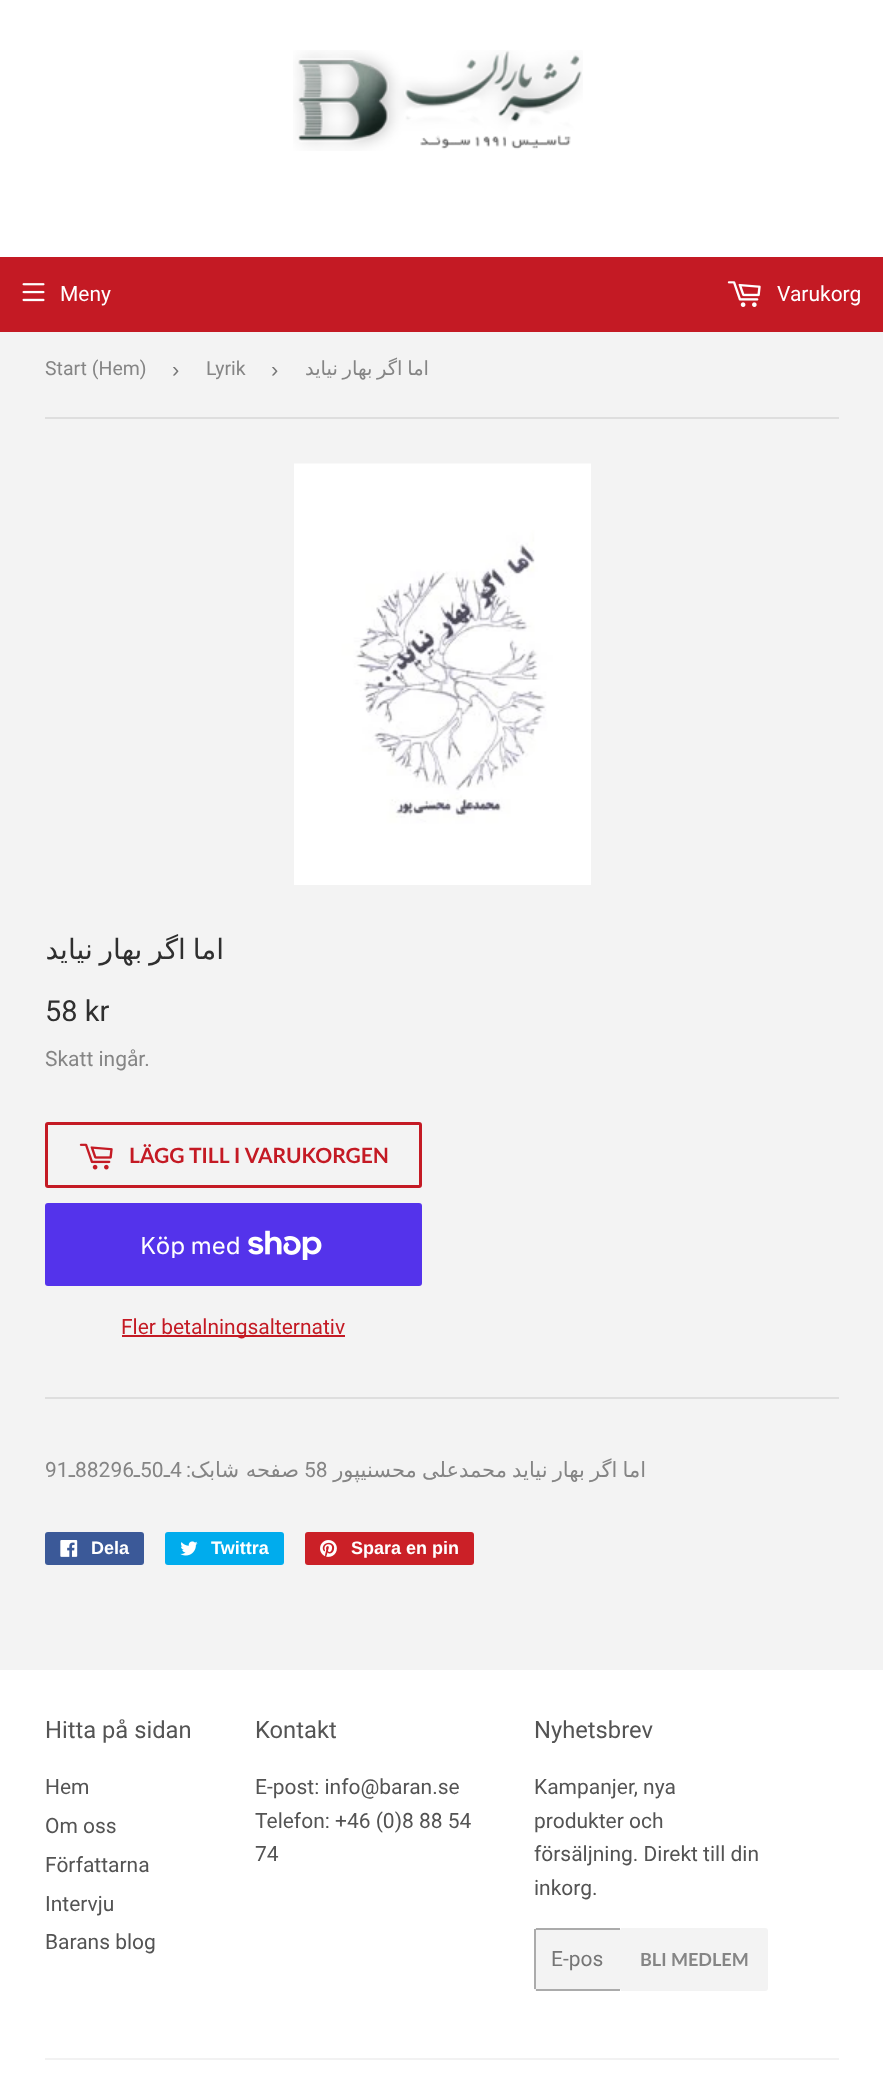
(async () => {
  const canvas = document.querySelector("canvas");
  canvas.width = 883;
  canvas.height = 2075;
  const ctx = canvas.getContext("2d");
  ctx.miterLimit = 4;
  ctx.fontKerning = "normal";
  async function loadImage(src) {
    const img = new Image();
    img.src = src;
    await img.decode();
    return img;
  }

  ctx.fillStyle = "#f3f3f3";
  ctx.fillRect(0, 0, 883, 2075);
  ctx.fillStyle = "#ffffff";
  ctx.fillRect(0, 0, 883, 257);
  ctx.drawImage(await loadImage("img/1.png"), 293, 50, 290, 101);
  ctx.fillStyle = "#c41a24";
  ctx.fillRect(0, 257, 883, 75);
  ctx.drawImage(await loadImage("img/2.png"), 22, 283, 23, 19);
  ctx.drawImage(await loadImage("img/3.png"), 727, 281, 34, 26);
  ctx.fillStyle = "#dedede";
  ctx.fillRect(45, 417, 794, 2);
  ctx.drawImage(await loadImage("img/4.png"), 294, 463, 297, 422);
  ctx.beginPath();
  ctx.roundRect(46.5, 1123.5, 374, 63, 1.5);
  ctx.strokeStyle = "#c41a24";
  ctx.lineWidth = 3;
  ctx.stroke();
  ctx.drawImage(await loadImage("img/5.png"), 79, 1143, 34, 27);
  ctx.fillStyle = "#5433eb";
  ctx.beginPath();
  ctx.roundRect(45, 1203, 377, 83, 3);
  ctx.fill();
  ctx.drawImage(await loadImage("img/6.png"), 248, 1230, 74, 30);
  ctx.fillStyle = "#c41a24";
  ctx.fillRect(122, 1335, 223, 2);
  ctx.fillStyle = "#dedede";
  ctx.fillRect(45, 1397, 794, 2);
  ctx.fillStyle = "#3b5998";
  ctx.beginPath();
  ctx.roundRect(45, 1532, 99, 33, 3);
  ctx.fill();
  ctx.drawImage(await loadImage("img/7.png"), 60, 1540, 18, 17);
  ctx.fillStyle = "#00aced";
  ctx.beginPath();
  ctx.roundRect(165, 1532, 119, 33, 3);
  ctx.fill();
  ctx.drawImage(await loadImage("img/8.png"), 180, 1541, 18, 15);
  ctx.fillStyle = "#cb2027";
  ctx.beginPath();
  ctx.roundRect(305, 1532, 169, 33, 3);
  ctx.fill();
  ctx.drawImage(await loadImage("img/9.png"), 320, 1540, 17, 17);
  ctx.fillStyle = "#ffffff";
  ctx.fillRect(0, 1670, 883, 405);
  ctx.fillStyle = "#f3f3f3";
  ctx.beginPath();
  ctx.roundRect(534, 1928, 87, 63, 3);
  ctx.fill();
  for (const [x, y, w, h, color] of [
    [536, 1928, 84, 2, "#ababab"],
    [536, 1989, 84, 2, "#ababab"],
    [534, 1929, 2, 60, "#ababab"],
  ]) {
    ctx.fillStyle = color;
    ctx.fillRect(x, y, w, h);
  }
  ctx.fillStyle = "#f3f3f3";
  ctx.beginPath();
  ctx.roundRect(621, 1928, 147, 63, [0, 3, 3, 0]);
  ctx.fill();
  ctx.fillStyle = "#f2f2f2";
  ctx.fillRect(45, 2058, 794, 2);
  ctx.font = "21px Roboto";
  ctx.fillStyle = "#ffffff";
  ctx.fillText("Meny", 60, 301);
  ctx.fillText("Varukorg", 777, 301);
  ctx.font = "19.5px Roboto";
  ctx.fillStyle = "#858585";
  ctx.fillText("Start (Hem)", 45, 375);
  ctx.font = "22px Liberation Sans";
  ctx.fillStyle = "#767676";
  ctx.fillText("›", 172, 377);
  ctx.font = "19.5px Roboto";
  ctx.fillStyle = "#858585";
  ctx.fillText("Lyrik", 206, 375);
  ctx.font = "22px Liberation Sans";
  ctx.fillStyle = "#767676";
  ctx.fillText("›", 271, 377);
  ctx.wordSpacing = "-1.5px";
  ctx.direction = "rtl";
  ctx.font = "19.5px DejaVu Sans";
  ctx.fillStyle = "#858585";
  ctx.fillText("اما اگر بهار نیاید", 429, 375);
  ctx.wordSpacing = "-2px";
  ctx.font = "28px DejaVu Sans";
  ctx.fillStyle = "#2f2f2f";
  ctx.fillText("اما اگر بهار نیاید", 224, 959);
  ctx.wordSpacing = "0px";
  ctx.direction = "ltr";
  ctx.font = "29px Roboto";
  ctx.fillText("58 kr", 45, 1021);
  ctx.font = "21px Roboto";
  ctx.fillStyle = "#858585";
  ctx.fillText("Skatt ingår.", 45, 1066);
  ctx.font = "bold 21px Lato";
  ctx.fillStyle = "#c41a24";
  ctx.fillText("LÄGG TILL I VARUKORGEN", 129, 1163);
  ctx.font = "24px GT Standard";
  ctx.fillStyle = "#ffffff";
  ctx.fillText("Köp med", 140, 1254);
  ctx.font = "21px Roboto";
  ctx.fillStyle = "#c41a24";
  ctx.fillText("Fler betalningsalternativ", 121, 1334);
  ctx.fillStyle = "#858585";
  ctx.fillText("91", 45, 1477);
  ctx.direction = "rtl";
  ctx.font = "21px DejaVu Sans";
  ctx.fillText("ـ", 75, 1477);
  ctx.direction = "ltr";
  ctx.font = "21px Roboto";
  ctx.fillText("88296", 75, 1477);
  ctx.direction = "rtl";
  ctx.font = "21px DejaVu Sans";
  ctx.fillText("ـ", 140, 1477);
  ctx.direction = "ltr";
  ctx.font = "21px Roboto";
  ctx.fillText("50", 140, 1477);
  ctx.direction = "rtl";
  ctx.font = "21px DejaVu Sans";
  ctx.fillText("ـ", 170, 1477);
  ctx.direction = "ltr";
  ctx.font = "21px Roboto";
  ctx.fillText("4", 170, 1477);
  ctx.direction = "rtl";
  ctx.fillText(":", 191, 1477);
  ctx.font = "21px DejaVu Sans";
  ctx.fillText("صفحه شابک", 299, 1477);
  ctx.direction = "ltr";
  ctx.font = "21px Roboto";
  ctx.fillText("58", 304, 1477);
  ctx.wordSpacing = "-1.5px";
  ctx.direction = "rtl";
  ctx.font = "21px DejaVu Sans";
  ctx.fillText("اما اگر بهار نیاید محمدعلی محسنیپور", 646, 1477);
  ctx.wordSpacing = "0px";
  ctx.direction = "ltr";
  ctx.font = "bold 18px Liberation Sans";
  ctx.fillStyle = "#ffffff";
  for (const [text, x, y] of [
    ["Dela", 91, 1554],
    ["Twittra", 211, 1554],
    ["Spara en pin", 351, 1554],
  ]) {
    ctx.fillText(text, x, y);
  }
  ctx.font = "23.75px Roboto";
  ctx.fillStyle = "#545454";
  ctx.fillText("Hitta på sidan", 45, 1738);
  ctx.font = "21px Roboto";
  for (const [text, x, y] of [
    ["Hem", 45, 1794],
    ["Om oss", 45, 1833],
    ["Författarna", 45, 1872],
    ["Intervju", 45, 1911],
    ["Barans blog", 45, 1949],
  ]) {
    ctx.fillText(text, x, y);
  }
  ctx.font = "23.75px Roboto";
  ctx.fillText("Kontakt", 255, 1738);
  ctx.font = "21px Roboto";
  for (const [text, x, y] of [
    ["E-post: info@baran.se", 255, 1794],
    ["Telefon: +46 (0)8 88 54", 255, 1828],
    ["74", 255, 1861],
  ]) {
    ctx.fillText(text, x, y);
  }
  ctx.font = "23.75px Roboto";
  ctx.fillText("Nyhetsbrev", 534, 1738);
  ctx.font = "21px Roboto";
  for (const [text, x, y] of [
    ["Kampanjer, nya", 534, 1794],
    ["produkter och", 534, 1828],
    ["försäljning. Direkt till din", 534, 1861],
    ["inkorg.", 534, 1895],
  ]) {
    ctx.fillText(text, x, y);
  }
  ctx.fillStyle = "#767676";
  ctx.fillText("E-pos", 551, 1966);
  ctx.font = "bold 18px Lato";
  ctx.fillStyle = "#858585";
  ctx.fillText("BLI MEDLEM", 640, 1966);
})();
